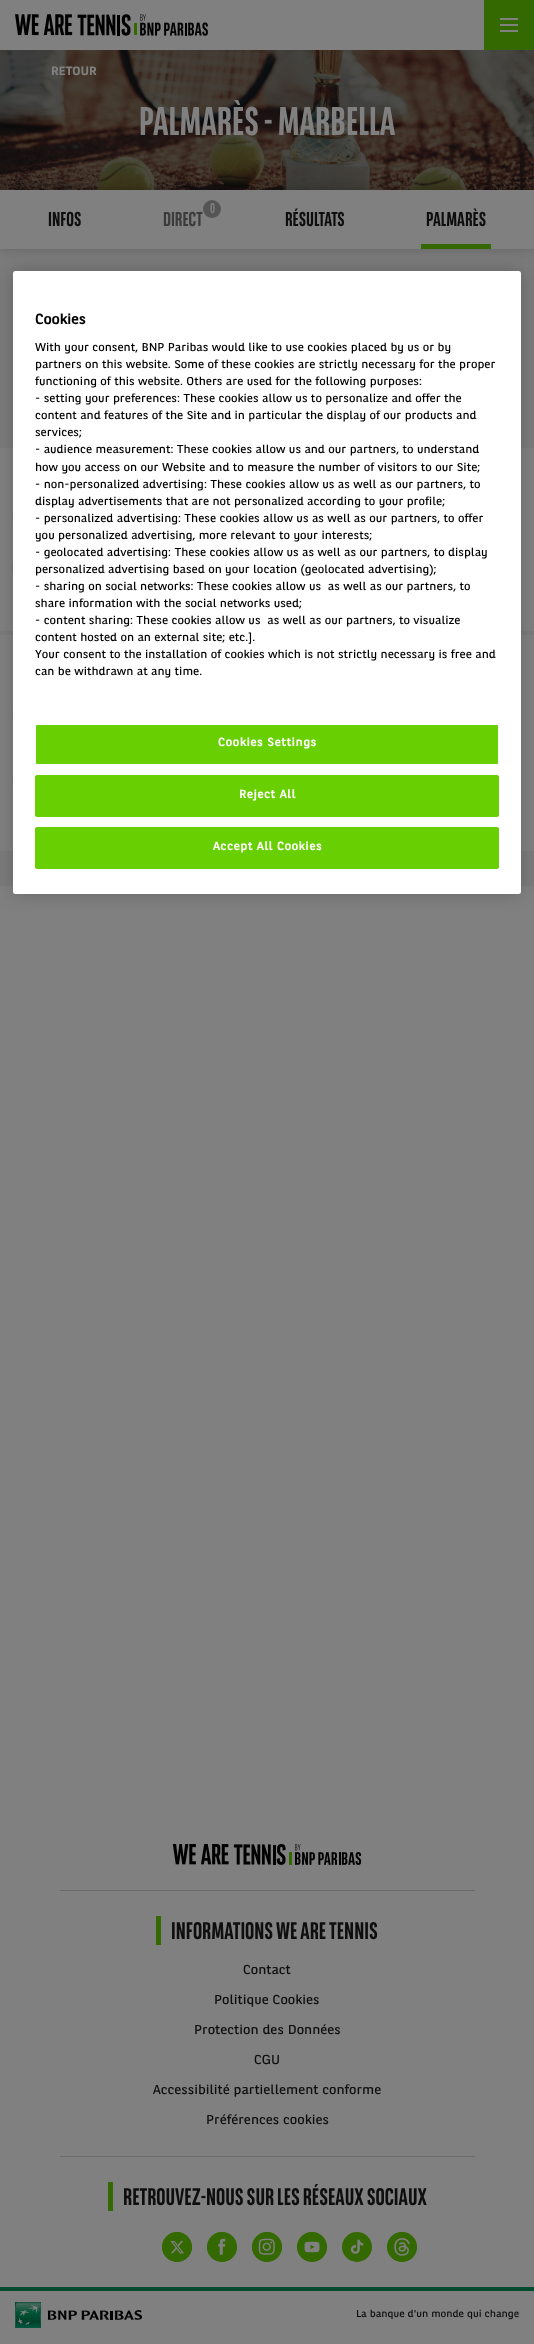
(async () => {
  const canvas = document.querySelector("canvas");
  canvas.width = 534;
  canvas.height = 2344;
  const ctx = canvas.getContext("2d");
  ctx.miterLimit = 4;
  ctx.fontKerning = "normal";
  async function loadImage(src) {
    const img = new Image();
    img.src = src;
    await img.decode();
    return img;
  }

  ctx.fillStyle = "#808080";
  ctx.fillRect(0, 0, 534, 2344);
  ctx.drawImage(await loadImage("img/1.png"), 15, 14, 193, 22);
  for (const [x, y, w, h, color] of [
    [484, 0, 50, 50, "#346801"],
    [500, 18, 18, 2, "#808080"],
    [500, 24, 18, 2, "#808080"],
    [500, 30, 18, 2, "#808080"],
  ]) {
    ctx.fillStyle = color;
    ctx.fillRect(x, y, w, h);
  }
  ctx.drawImage(await loadImage("img/2.png"), 0, 50, 534, 140);
  ctx.fillStyle = "#7b7b7b";
  ctx.fillRect(0, 249, 534, 637);
  ctx.fillStyle = "rgba(0, 0, 0, 0.2)";
  ctx.filter = "blur(6px)";
  ctx.beginPath();
  ctx.rect(0, 190, 534, 59);
  ctx.fill();
  ctx.filter = "none";
  ctx.fillStyle = "#808080";
  ctx.fillRect(0, 190, 534, 59);
  ctx.fillStyle = "#555555";
  ctx.beginPath();
  ctx.arc(212, 209, 9, 0, Math.PI * 2);
  ctx.fill();
  ctx.fillStyle = "#346801";
  ctx.fillRect(421, 244, 70, 5);
  ctx.fillStyle = "#808080";
  ctx.fillRect(0, 448, 534, 183);
  ctx.fillStyle = "rgba(0, 0, 0, 0.3)";
  ctx.filter = "blur(2px)";
  ctx.beginPath();
  ctx.roundRect(15, 508, 20, 20, 10);
  ctx.fill();
  ctx.filter = "none";
  ctx.filter = "blur(2px)";
  ctx.beginPath();
  ctx.roundRect(15, 558, 20, 20, 10);
  ctx.fill();
  ctx.filter = "none";
  ctx.fillStyle = "#808080";
  ctx.fillRect(0, 635, 534, 216);
  ctx.fillStyle = "rgba(0, 0, 0, 0.3)";
  ctx.filter = "blur(2px)";
  ctx.beginPath();
  ctx.roundRect(15, 704, 20, 20, 10);
  ctx.fill();
  ctx.filter = "none";
  ctx.filter = "blur(2px)";
  ctx.beginPath();
  ctx.roundRect(15, 770, 20, 20, 10);
  ctx.fill();
  ctx.filter = "none";
  ctx.drawImage(await loadImage("img/3.png"), 172, 1844, 190, 21);
  for (const [x, y, w, h, color] of [
    [60, 1890, 415, 1, "#6b6b6b"],
    [156, 1916, 5, 29, "#346801"],
    [60, 2156, 415, 1, "#6b6b6b"],
    [108, 2182, 5, 29, "#346801"],
  ]) {
    ctx.fillStyle = color;
    ctx.fillRect(x, y, w, h);
  }
  ctx.beginPath();
  ctx.arc(177, 2247, 14, 0, Math.PI * 2);
  ctx.strokeStyle = "#346801";
  ctx.lineWidth = 2;
  ctx.stroke();
  ctx.drawImage(await loadImage("img/4.png"), 162, 2232, 30, 30);
  ctx.beginPath();
  ctx.arc(222, 2247, 14, 0, Math.PI * 2);
  ctx.stroke();
  ctx.drawImage(await loadImage("img/5.png"), 207, 2232, 30, 30);
  ctx.beginPath();
  ctx.arc(267, 2247, 14, 0, Math.PI * 2);
  ctx.stroke();
  ctx.drawImage(await loadImage("img/6.png"), 252, 2232, 30, 30);
  ctx.beginPath();
  ctx.arc(312, 2247, 14, 0, Math.PI * 2);
  ctx.stroke();
  ctx.drawImage(await loadImage("img/7.png"), 297, 2232, 30, 30);
  ctx.beginPath();
  ctx.arc(357, 2247, 14, 0, Math.PI * 2);
  ctx.stroke();
  ctx.drawImage(await loadImage("img/8.png"), 344, 2234, 26, 26);
  ctx.beginPath();
  ctx.arc(402, 2247, 14, 0, Math.PI * 2);
  ctx.stroke();
  ctx.drawImage(await loadImage("img/9.png"), 387, 2232, 30, 30);
  ctx.fillStyle = "#004b2f";
  ctx.fillRect(0, 2287, 534, 4);
  ctx.drawImage(await loadImage("img/10.png"), 15, 2302, 127, 26);
  ctx.fillStyle = "rgba(0, 0, 0, 0.2)";
  ctx.filter = "blur(9px)";
  ctx.beginPath();
  ctx.roundRect(13, 271, 508, 623, 2.5);
  ctx.fill();
  ctx.filter = "none";
  ctx.fillStyle = "#ffffff";
  ctx.beginPath();
  ctx.roundRect(13, 271, 508, 623, 2.5);
  ctx.fill();
  ctx.fillStyle = "#68d002";
  ctx.beginPath();
  ctx.roundRect(35.5, 724.5, 463, 40, 1.5);
  ctx.fill();
  ctx.strokeStyle = "#ffffff";
  ctx.lineWidth = 1;
  ctx.stroke();
  ctx.beginPath();
  ctx.roundRect(35.5, 775.5, 463, 41, 1.5);
  ctx.fill();
  ctx.strokeStyle = "#68d002";
  ctx.stroke();
  ctx.beginPath();
  ctx.roundRect(35.5, 827.5, 463, 41, 1.5);
  ctx.fill();
  ctx.stroke();
  ctx.font = "bold 12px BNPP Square";
  ctx.fillStyle = "#808080";
  ctx.fillText("RETOUR", 51, 75);
  ctx.font = "bold 40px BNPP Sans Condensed";
  ctx.fillText("PALMARÈS - MARBELLA", 139, 135);
  ctx.font = "bold 20px BNPP Sans Condensed";
  ctx.fillStyle = "#0e0e0e";
  ctx.fillText("INFOS", 48, 226);
  ctx.font = "bold 14px BNPP Sans Condensed";
  ctx.fillStyle = "#808080";
  ctx.fillText("0", 210, 213);
  ctx.font = "bold 20px BNPP Sans Condensed";
  ctx.fillStyle = "#3b3b3b";
  ctx.fillText("DIRECT", 163, 226);
  ctx.fillStyle = "#0e0e0e";
  ctx.fillText("RÉSULTATS", 285, 226);
  ctx.fillText("PALMARÈS", 426, 226);
  ctx.font = "bold 24px BNPP Sans Condensed";
  ctx.fillText("INFORMATIONS WE ARE TENNIS", 171, 1939);
  ctx.font = "13px BNPP Square";
  for (const [text, x, y] of [
    ["Contact", 243, 1974],
    ["Politique Cookies", 214, 2004],
    ["Protection des Données", 194, 2034],
    ["CGU", 254, 2064],
    ["Accessibilité partiellement conforme", 153, 2094],
    ["Préférences cookies", 206, 2124],
  ]) {
    ctx.fillText(text, x, y);
  }
  ctx.font = "bold 24px BNPP Sans Condensed";
  ctx.fillText("RETROUVEZ-NOUS SUR LES RÉSEAUX SOCIAUX", 123, 2205);
  ctx.font = "10px BNPP Square";
  ctx.fillText("La banque d'un monde qui change", 356, 2317);
  ctx.font = "bold 14px 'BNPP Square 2'";
  ctx.fillStyle = "#000000";
  ctx.fillText("Cookies", 35, 324);
  ctx.font = "11.4px BNPP Square";
  for (const [text, x, y] of [
    ["With your consent, BNP Paribas would like to use cookies placed by us or by", 35, 351],
    ["partners on this website. Some of these cookies are strictly necessary for the proper", 35, 368],
    ["functioning of this website. Others are used for the following purposes:", 35, 385],
    ["- setting your preferences: These cookies allow us to personalize and offer the", 35, 402],
    ["content and features of the Site and in particular the display of our products and", 35, 419],
    ["services;", 35, 436],
    ["- audience measurement: These cookies allow us and our partners, to understand", 35, 453],
    ["how you access on our Website and to measure the number of visitors to our Site;", 35, 471],
    ["- non-personalized advertising: These cookies allow us as well as our partners, to", 35, 488],
    ["display advertisements that are not personalized according to your profile;", 35, 505],
    ["- personalized advertising: These cookies allow us as well as our partners, to offer", 35, 522],
    ["you personalized advertising, more relevant to your interests;", 35, 539],
    ["- geolocated advertising: These cookies allow us as well as our partners, to display", 35, 556],
    ["personalized advertising based on your location (geolocated advertising);", 35, 573],
    ["- sharing on social networks: These cookies allow us  as well as our partners, to", 35, 590],
    ["share information with the social networks used;", 35, 607],
    ["- content sharing: These cookies allow us  as well as our partners, to visualize", 35, 624],
    ["content hosted on an external site; etc.].", 35, 641],
    ["Your consent to the installation of cookies which is not strictly necessary is free and", 35, 658],
    ["can be withdrawn at any time.", 35, 675],
  ]) {
    ctx.fillText(text, x, y);
  }
  ctx.letterSpacing = "0.6px";
  ctx.font = "bold 11.4px 'BNPP Square 2'";
  ctx.fillStyle = "#ffffff";
  for (const [text, x, y] of [
    ["Cookies Settings", 218, 746],
    ["Reject All", 239, 798],
    ["Accept All Cookies", 213, 850],
  ]) {
    ctx.fillText(text, x, y);
  }
})();
